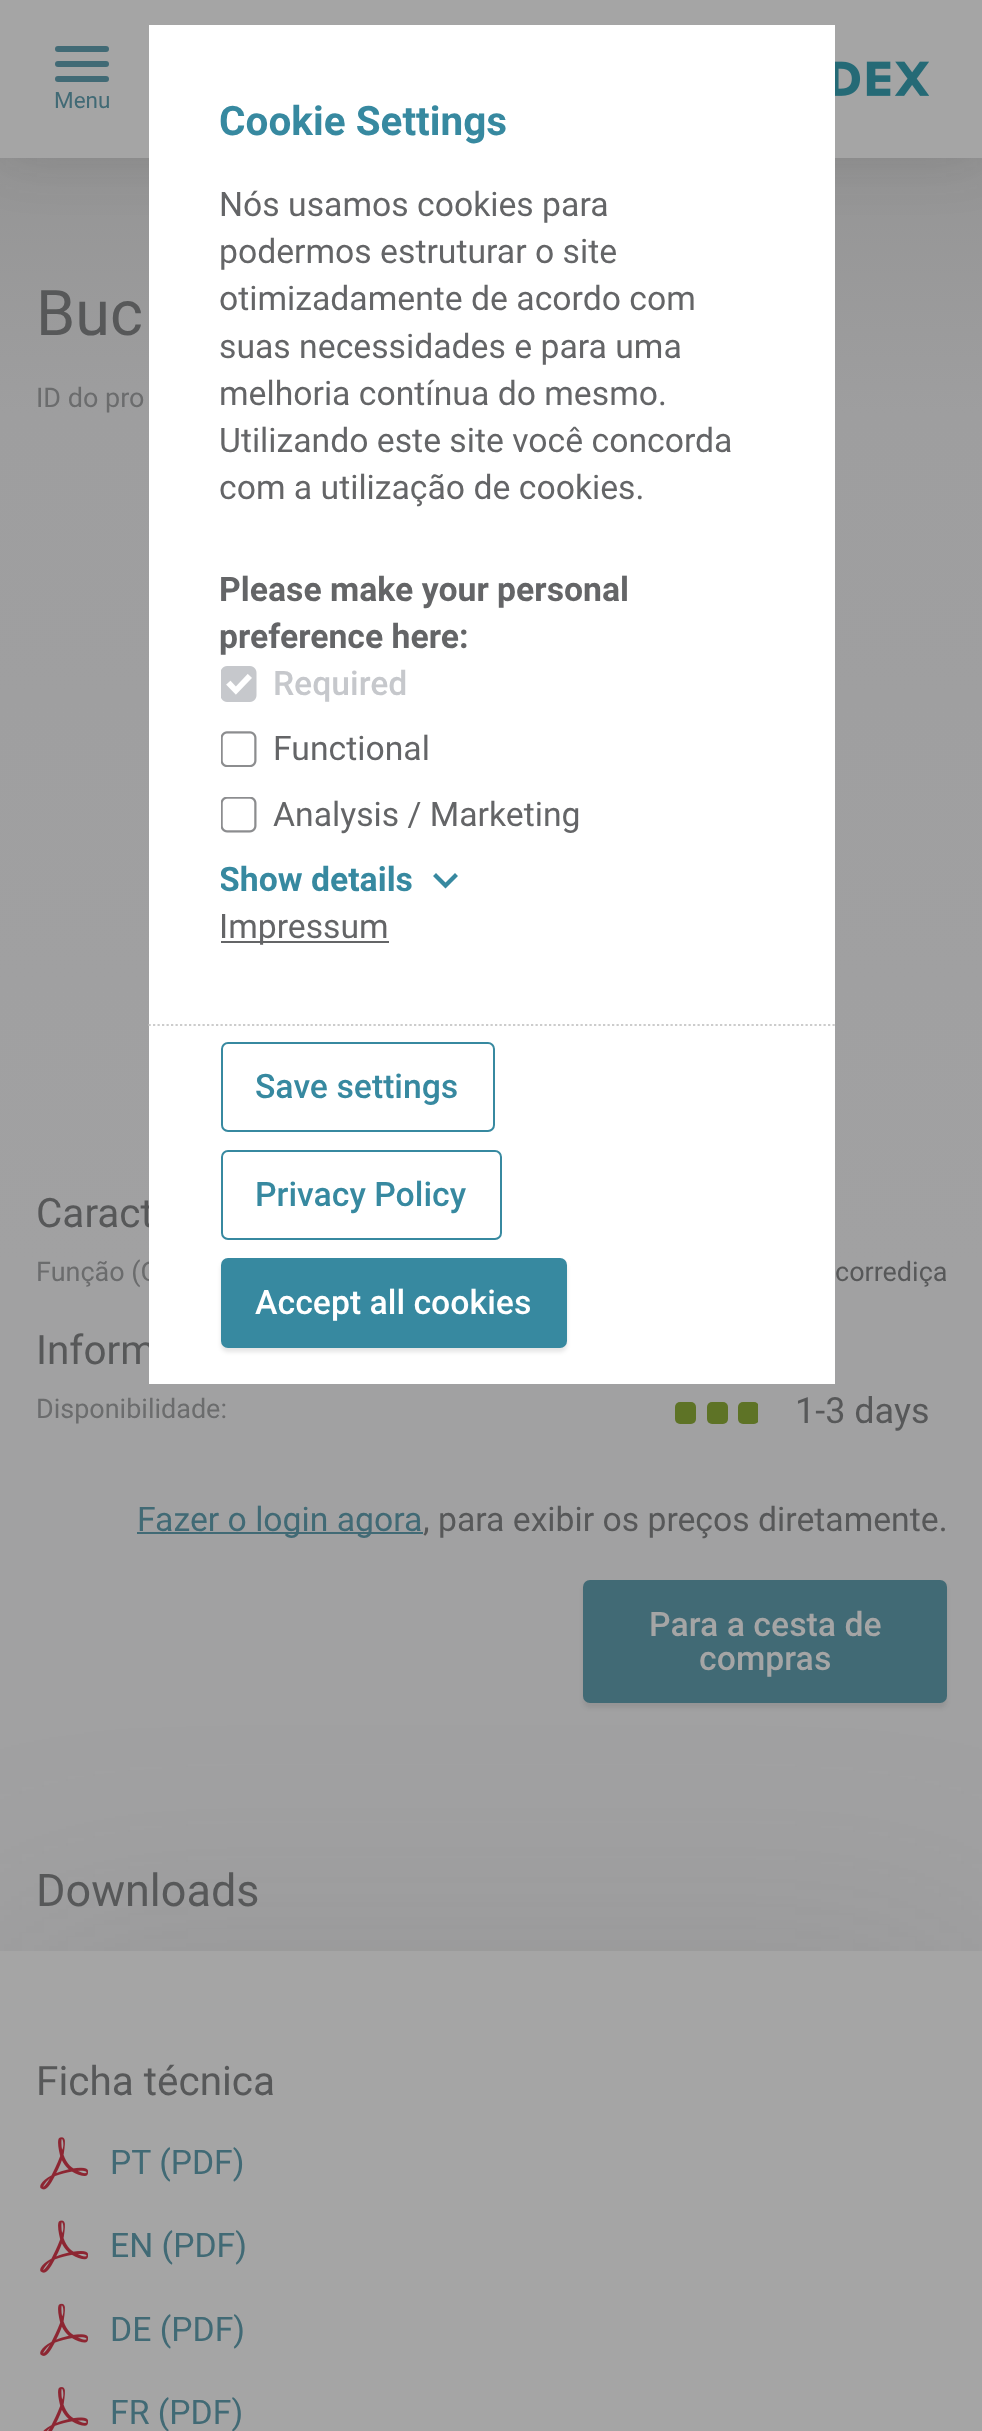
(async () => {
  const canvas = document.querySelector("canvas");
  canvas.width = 982;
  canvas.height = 2431;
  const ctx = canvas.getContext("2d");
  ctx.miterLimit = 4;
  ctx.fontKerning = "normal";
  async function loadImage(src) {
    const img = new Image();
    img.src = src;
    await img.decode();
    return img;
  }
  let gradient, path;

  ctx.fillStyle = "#ffffff";
  ctx.fillRect(0, 0, 982, 2431);
  gradient = ctx.createLinearGradient(492, 0, 492, 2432);
  gradient.addColorStop(0, "#8f8f8f");
  gradient.addColorStop(0.17, "#9e9e9f");
  gradient.addColorStop(0.52, "#a1a1a2");
  gradient.addColorStop(1, "#a1a1a2");
  ctx.fillStyle = gradient;
  ctx.fillRect(0, 158, 982, 1793);
  ctx.fillStyle = "rgba(37, 37, 37, 0.15)";
  ctx.filter = "blur(28px)";
  ctx.beginPath();
  ctx.rect(0, 0, 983, 158);
  ctx.fill();
  ctx.filter = "none";
  ctx.fillStyle = "#a5a5a5";
  ctx.fillRect(0, 0, 982, 158);
  ctx.drawImage(await loadImage("img/1.png"), 835, 61, 94, 35);
  ctx.fillStyle = "#416a75";
  ctx.beginPath();
  ctx.roundRect(55, 46, 54, 6, 3);
  ctx.fill();
  ctx.beginPath();
  ctx.roundRect(55, 61, 54, 6, 3);
  ctx.fill();
  ctx.beginPath();
  ctx.roundRect(55, 76, 54, 6, 3);
  ctx.fill();
  ctx.fillStyle = "#5e7326";
  ctx.beginPath();
  ctx.roundRect(675, 1402, 21, 22, 5);
  ctx.fill();
  ctx.beginPath();
  ctx.roundRect(707, 1402, 21, 22, 5);
  ctx.fill();
  ctx.save();
  ctx.beginPath();
  ctx.rect(675, 1379, 83, 68);
  ctx.clip();
  ctx.beginPath();
  ctx.roundRect(738, 1402, 21, 22, 5);
  ctx.fill();
  ctx.restore();
  ctx.fillStyle = "#416a75";
  ctx.fillRect(137, 1532, 286, 2);
  ctx.fillStyle = "rgba(37, 37, 37, 0.1)";
  ctx.filter = "blur(2px)";
  ctx.beginPath();
  ctx.roundRect(583, 1584, 364, 124, 7);
  ctx.fill();
  ctx.filter = "none";
  ctx.fillStyle = "#416a75";
  ctx.beginPath();
  ctx.roundRect(583, 1580, 364, 123, 7);
  ctx.fill();
  ctx.fillStyle = "rgba(87, 88, 89, 0.15)";
  ctx.filter = "blur(112.5px)";
  ctx.beginPath();
  ctx.rect(0, 1951, 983, 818);
  ctx.fill();
  ctx.filter = "none";
  ctx.fillStyle = "#a5a5a5";
  ctx.fillRect(0, 1951, 982, 480);
  ctx.drawImage(await loadImage("img/2.png"), 40, 2137, 48, 53);
  ctx.drawImage(await loadImage("img/3.png"), 40, 2220, 48, 53);
  ctx.drawImage(await loadImage("img/4.png"), 40, 2303, 48, 53);
  ctx.drawImage(await loadImage("img/5.png"), 43, 2387, 45, 44);
  ctx.font = "22.5px Roboto";
  ctx.fillStyle = "#416a75";
  ctx.fillText("Menu", 54, 108);
  ctx.font = "63px Roboto";
  ctx.fillStyle = "#575859";
  ctx.fillText("Buc", 36, 335);
  ctx.font = "27px Roboto";
  ctx.fillStyle = "#6b6c6d";
  ctx.fillText("ID do pro", 36, 407);
  ctx.font = "40.5px Roboto";
  ctx.fillStyle = "#575859";
  ctx.fillText("Caract", 36, 1227);
  ctx.font = "27px Roboto";
  ctx.fillStyle = "#6b6c6d";
  ctx.fillText("Função (C", 36, 1281);
  ctx.fillStyle = "#575859";
  ctx.fillText("corrediça", 835, 1281);
  ctx.font = "40.5px Roboto";
  ctx.fillText("Inform", 36, 1364);
  ctx.font = "27px Roboto";
  ctx.fillStyle = "#6b6c6d";
  ctx.fillText("Disponibilidade:", 36, 1418);
  ctx.font = "36px Roboto";
  ctx.fillStyle = "#575859";
  ctx.fillText("1-3 days", 795, 1423);
  ctx.font = "33.75px Roboto";
  ctx.fillStyle = "#416a75";
  ctx.fillText("Fazer o login agora", 137, 1531);
  ctx.fillStyle = "#575859";
  ctx.fillText(", para exibir os preços diretamente.", 423, 1531);
  ctx.font = "500 33.75px Roboto";
  ctx.fillStyle = "#a5a5a5";
  ctx.fillText("Para a cesta de", 649, 1636);
  ctx.fillText("compras", 699, 1670);
  ctx.font = "45px Roboto";
  ctx.fillStyle = "#575859";
  ctx.fillText("Downloads", 36, 1906);
  ctx.font = "40.5px Roboto";
  ctx.fillText("Ficha técnica", 36, 2095);
  ctx.font = "33.75px Roboto";
  ctx.fillStyle = "#416a75";
  for (const [text, x, y] of [
    ["PT (PDF)", 110, 2174],
    ["EN (PDF)", 110, 2257],
    ["DE (PDF)", 110, 2341],
    ["FR (PDF)", 110, 2424],
  ]) {
    ctx.fillText(text, x, y);
  }
  ctx.fillStyle = "#ffffff";
  ctx.fillRect(149, 25, 686, 1359);
  path = new Path2D("M148.5 1025H835");
  ctx.strokeStyle = "#cccccc";
  ctx.lineWidth = 2.2;
  ctx.setLineDash([2.25, 2.25]);
  ctx.stroke(path);
  ctx.font = "bold 40.5px Roboto";
  ctx.fillStyle = "#3789a0";
  ctx.fillText("Cookie Settings", 219, 135);
  ctx.font = "33.75px Roboto";
  ctx.fillStyle = "#646567";
  for (const [text, x, y] of [
    ["Nós usamos cookies para", 219, 216],
    ["podermos estruturar o site", 219, 263],
    ["otimizadamente de acordo com", 219, 310],
    ["suas necessidades e para uma", 219, 358],
    ["melhoria contínua do mesmo.", 219, 405],
    ["Utilizando este site você concorda", 219, 452],
    ["com a utilização de cookies.", 219, 499],
  ]) {
    ctx.fillText(text, x, y);
  }
  ctx.font = "bold 33.75px Roboto";
  ctx.fillText("Please make your personal", 219, 601);
  ctx.fillText("preference here:", 219, 648);
  ctx.drawImage(await loadImage("img/6.png"), 221, 666, 36, 36);
  ctx.font = "500 33.75px Roboto";
  ctx.fillStyle = "#c6c8cc";
  ctx.fillText("Required", 273, 695);
  ctx.drawImage(await loadImage("img/7.png"), 221, 731, 36, 36);
  ctx.font = "33.75px Roboto";
  ctx.fillStyle = "#646567";
  ctx.fillText("Functional", 273, 760);
  ctx.drawImage(await loadImage("img/8.png"), 221, 797, 36, 36);
  ctx.fillText("Analysis / Marketing", 273, 826);
  ctx.save();
  ctx.beginPath();
  ctx.rect(221, 182, 542, 770);
  ctx.clip();
  ctx.font = "bold 33.75px Roboto";
  ctx.fillStyle = "#3789a0";
  ctx.fillText("Show details", 219, 891);
  ctx.restore();
  ctx.fillStyle = "#3789a0";
  path = new Path2D("M436 873L445.5 882.5L455 873L458 876L445.5 888.5L433 876Z");
  ctx.fill(path);
  ctx.fillStyle = "#646567";
  ctx.fillRect(221, 941, 168, 2);
  ctx.fillText("Impressum", 219, 938);
  ctx.beginPath();
  ctx.roundRect(222, 1043, 272, 88, 6);
  ctx.strokeStyle = "#3789a0";
  ctx.lineWidth = 2;
  ctx.setLineDash([]);
  ctx.stroke();
  ctx.font = "500 33.75px Roboto";
  ctx.fillStyle = "#3789a0";
  ctx.fillText("Save settings", 255, 1098);
  ctx.beginPath();
  ctx.roundRect(222, 1151, 279, 88, 6);
  ctx.stroke();
  ctx.fillText("Privacy Policy", 255, 1206);
  ctx.fillStyle = "rgba(0, 0, 0, 0.1)";
  ctx.filter = "blur(2px)";
  ctx.beginPath();
  ctx.roundRect(221, 1262, 346, 90, 7);
  ctx.fill();
  ctx.filter = "none";
  ctx.fillStyle = "#3789a0";
  ctx.beginPath();
  ctx.roundRect(221, 1258, 346, 90, 7);
  ctx.fill();
  ctx.fillStyle = "#ffffff";
  ctx.fillText("Accept all cookies", 255, 1314);
})();
